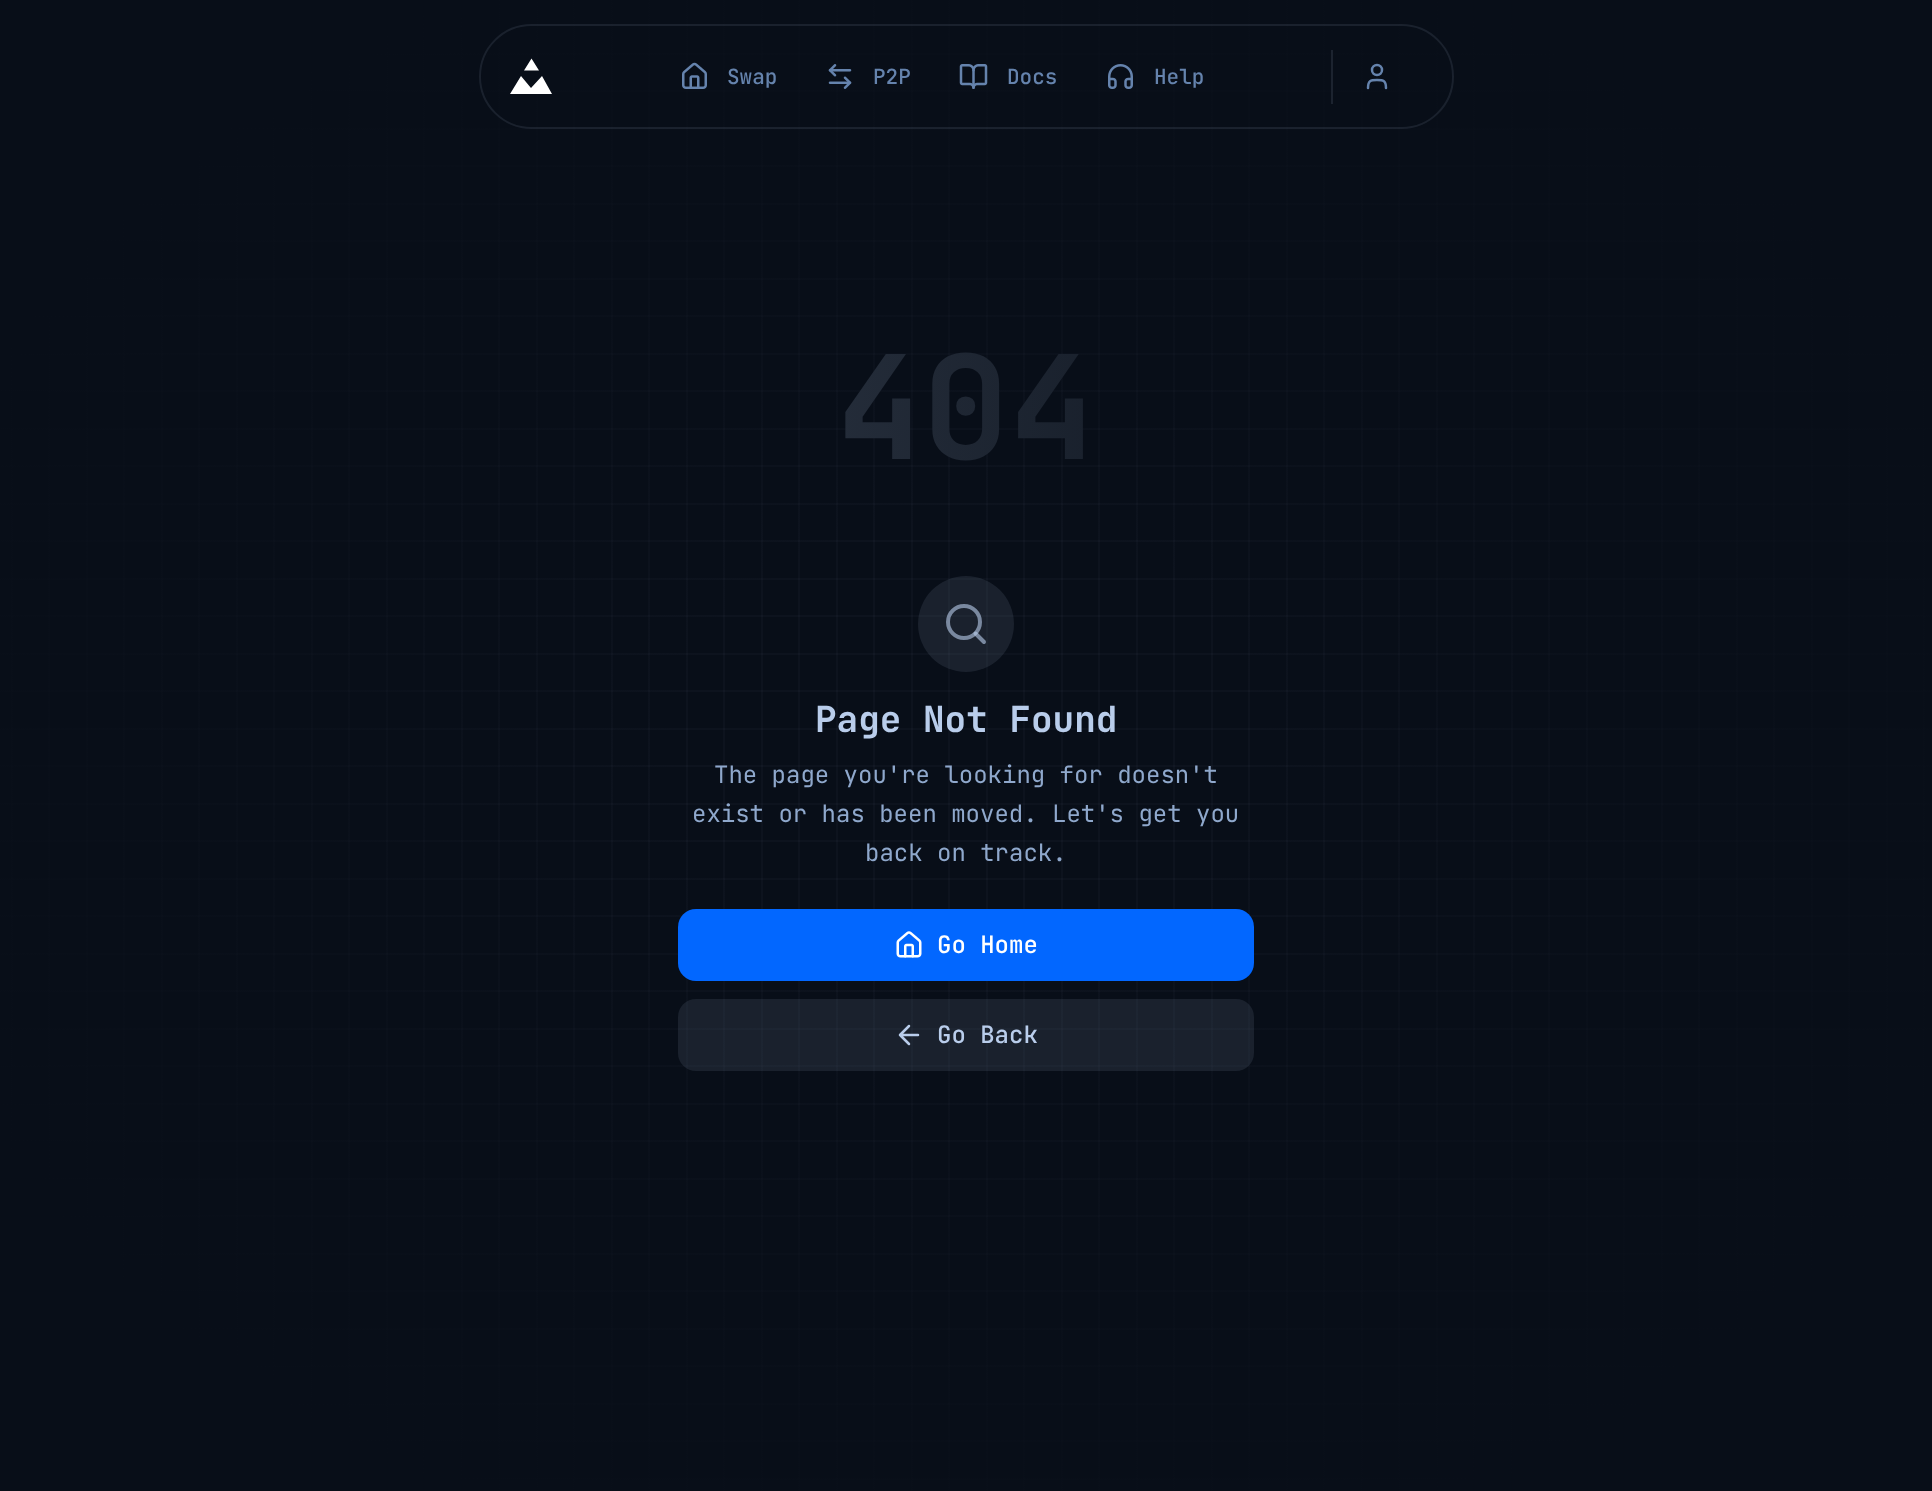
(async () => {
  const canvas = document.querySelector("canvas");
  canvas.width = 1932;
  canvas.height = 1491;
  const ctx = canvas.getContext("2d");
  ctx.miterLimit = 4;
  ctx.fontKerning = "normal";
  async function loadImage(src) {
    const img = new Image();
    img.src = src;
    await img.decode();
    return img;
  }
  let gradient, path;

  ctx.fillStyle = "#080e18";
  ctx.fillRect(0, 0, 1932, 1491);
  ctx.drawImage(await loadImage("img/1.png"), 11, 0, 1914, 1491);
  ctx.drawImage(await loadImage("img/2.png"), 0, 53, 1932, 1427);
  gradient = ctx.createRadialGradient(966, 966.83, 0, 966, 966.83, 1366);
  gradient.addColorStop(0, "rgba(0, 0, 0, 0)");
  gradient.addColorStop(0.2, "rgba(8, 14, 24, 0)");
  gradient.addColorStop(0.5, "rgba(8, 14, 24, 0.6)");
  gradient.addColorStop(0.8, "#080e18");
  ctx.fillStyle = gradient;
  ctx.beginPath();
  ctx.rect(0, 0, 1932, 1491);
  ctx.save();
  ctx.clip();
  ctx.scale(1, 1054 / 1366);
  ctx.fillRect(0, 0, 1932, 1933);
  ctx.restore();
  ctx.beginPath();
  ctx.roundRect(480, 25, 973, 103, 51.5);
  ctx.strokeStyle = "rgba(185, 205, 235, 0.1)";
  ctx.lineWidth = 2;
  ctx.stroke();
  ctx.fillStyle = "#ffffff";
  path = new Path2D("M521 76L510 94H552L542 76L531 88ZM531.5 58.5L524 70.5H539Z");
  ctx.fill(path);
  ctx.drawImage(await loadImage("img/3.png"), 682, 62, 25, 27);
  ctx.drawImage(await loadImage("img/4.png"), 828, 64, 24, 25);
  ctx.drawImage(await loadImage("img/5.png"), 959, 64, 29, 25);
  ctx.drawImage(await loadImage("img/6.png"), 1108, 64, 25, 25);
  ctx.fillStyle = "#1c232f";
  ctx.fillRect(1331, 50, 2, 54);
  path = new Path2D("M1386 88C1386 80.5 1383.5 80 1377 80C1370.5 80 1368 80.5 1368 88");
  ctx.strokeStyle = "#6583ad";
  ctx.lineWidth = 2.5;
  ctx.lineCap = "round";
  ctx.lineJoin = "round";
  ctx.stroke(path);
  ctx.beginPath();
  ctx.arc(1377, 70, 5, 0, Math.PI * 2);
  ctx.stroke();
  ctx.fillStyle = "rgba(185, 205, 235, 0.1)";
  ctx.beginPath();
  ctx.arc(966, 624, 48, 0, Math.PI * 2);
  ctx.fill();
  path = new Path2D("M984 642L975.5 633.5");
  ctx.strokeStyle = "#7a89a0";
  ctx.lineWidth = 4;
  ctx.stroke(path);
  ctx.beginPath();
  ctx.arc(964, 622, 16, 0, Math.PI * 2);
  ctx.strokeStyle = "rgba(185, 205, 235, 0.6)";
  ctx.stroke();
  ctx.fillStyle = "#0267ff";
  ctx.beginPath();
  ctx.roundRect(678, 909, 576, 72, 18);
  ctx.fill();
  ctx.drawImage(await loadImage("img/7.png"), 896, 931, 26, 27);
  ctx.fillStyle = "rgba(185, 205, 235, 0.1)";
  ctx.beginPath();
  ctx.roundRect(678, 999, 576, 72, 18);
  ctx.fill();
  path = new Path2D("M909 1044L900 1035L909 1026M918 1035H900");
  ctx.strokeStyle = "#b9cdeb";
  ctx.lineWidth = 2.5;
  ctx.stroke(path);
  ctx.font = "500 21px JetBrains Mono";
  ctx.fillStyle = "#6583ad";
  for (const [text, x, y] of [
    ["Swap", 727, 84],
    ["P2P", 873, 84],
    ["Docs", 1007, 84],
    ["Help", 1154, 84],
  ]) {
    ctx.fillText(text, x, y);
  }
  ctx.font = "bold 144px JetBrains Mono";
  gradient = ctx.createLinearGradient(630, 408, 1302, 408);
  gradient.addColorStop(0, "#2c3543");
  gradient.addColorStop(1, "#111823");
  ctx.fillStyle = gradient;
  ctx.fillText("404", 836, 459);
  ctx.font = "bold 36px JetBrains Mono";
  ctx.fillStyle = "#b9cdeb";
  ctx.fillText("Page Not Found", 815, 732);
  ctx.font = "24px JetBrains Mono";
  ctx.fillStyle = "#8fa8cc";
  for (const [text, x, y] of [
    ["The page you're looking for doesn't", 714, 783],
    ["exist or has been moved. Let's get you", 692, 822],
    ["back on track.", 865, 861],
  ]) {
    ctx.fillText(text, x, y);
  }
  ctx.font = "500 24px JetBrains Mono";
  ctx.fillStyle = "#ffffff";
  ctx.fillText("Go Home", 937, 953);
  ctx.fillStyle = "#b9cdeb";
  ctx.fillText("Go Back", 937, 1043);
})();
